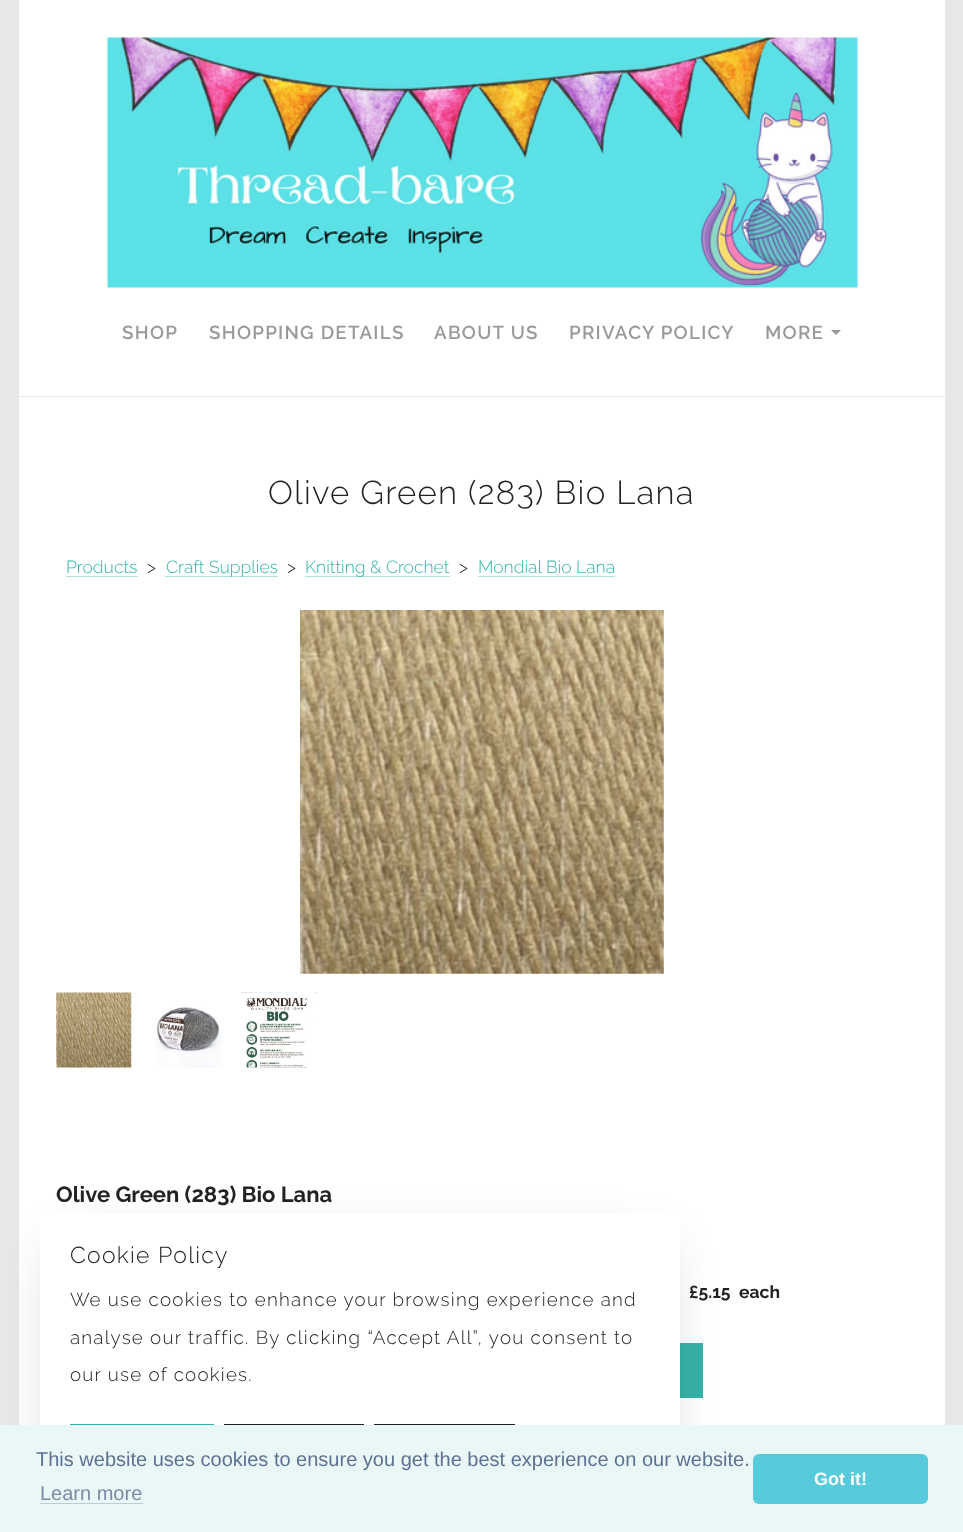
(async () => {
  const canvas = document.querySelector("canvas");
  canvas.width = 963;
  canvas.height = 1532;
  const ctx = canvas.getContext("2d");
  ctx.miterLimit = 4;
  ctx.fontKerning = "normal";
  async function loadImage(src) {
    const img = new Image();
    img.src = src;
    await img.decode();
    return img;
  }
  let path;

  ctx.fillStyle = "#e8e8e8";
  ctx.fillRect(0, 0, 963, 1532);
  ctx.fillStyle = "#ffffff";
  ctx.fillRect(19, 0, 926, 1425);
  ctx.fillStyle = "#e8e8e8";
  ctx.fillRect(19, 396, 926, 1);
  ctx.drawImage(await loadImage("img/1.png"), 107, 37, 751, 251);
  ctx.fillStyle = "#999999";
  path = new Path2D("M831 330H841L836 335Z");
  ctx.fill(path);
  for (const [x, y, w, h, color] of [
    [66, 576, 72, 1, "#afe1dd"],
    [165, 576, 113, 1, "#afe1dd"],
    [305, 576, 145, 1, "#afe1dd"],
    [478, 576, 137, 1, "#afe1dd"],
  ]) {
    ctx.fillStyle = color;
    ctx.fillRect(x, y, w, h);
  }
  ctx.drawImage(await loadImage("img/2.png"), 300, 610, 364, 364);
  ctx.drawImage(await loadImage("img/3.png"), 56, 992, 76, 76);
  ctx.drawImage(await loadImage("img/4.png"), 155, 1007, 68, 61);
  ctx.drawImage(await loadImage("img/5.png"), 241, 992, 76, 76);
  ctx.fillStyle = "#36b3a9";
  ctx.fillRect(680, 1343, 23, 55);
  ctx.fillStyle = "rgba(10, 10, 10, 0.2)";
  ctx.filter = "blur(28px)";
  ctx.beginPath();
  ctx.rect(59, 1250, 602, 243);
  ctx.fill();
  ctx.filter = "none";
  for (const [x, y, w, h, color] of [
    [40, 1213, 640, 212, "#ffffff"],
    [70, 1424, 144, 1, "#36b3a9"],
    [224, 1424, 140, 1, "#222222"],
    [374, 1424, 141, 1, "#222222"],
    [0, 1425, 963, 107, "#eaf7f7"],
    [40, 1503, 103, 1, "#bccdd6"],
  ]) {
    ctx.fillStyle = color;
    ctx.fillRect(x, y, w, h);
  }
  ctx.fillStyle = "#56cbdb";
  ctx.beginPath();
  ctx.roundRect(753, 1454, 175, 50, 6);
  ctx.fill();
  ctx.letterSpacing = "1.25px";
  ctx.font = "600 18.75px Raleway";
  ctx.fillStyle = "#999999";
  for (const [text, x, y] of [
    ["SHOP", 122, 339],
    ["SHOPPING DETAILS", 209, 339],
    ["ABOUT US", 434, 339],
    ["PRIVACY POLICY", 569, 339],
    ["MORE", 765, 339],
  ]) {
    ctx.fillText(text, x, y);
  }
  ctx.font = "300 33px Raleway";
  ctx.fillStyle = "#222222";
  ctx.fillText("Olive Green (283) Bio Lana", 268, 504);
  ctx.letterSpacing = "0px";
  ctx.font = "300 17.5px Raleway";
  ctx.fillStyle = "#36b3a9";
  ctx.fillText("Products", 66, 573);
  ctx.fillStyle = "#222222";
  ctx.fillText(">", 147, 573);
  ctx.fillStyle = "#36b3a9";
  ctx.fillText("Craft Supplies", 166, 573);
  ctx.fillStyle = "#222222";
  ctx.fillText(">", 287, 573);
  ctx.fillStyle = "#36b3a9";
  ctx.fillText("Knitting & Crochet", 305, 573);
  ctx.fillStyle = "#222222";
  ctx.fillText(">", 459, 573);
  ctx.fillStyle = "#36b3a9";
  ctx.fillText("Mondial Bio Lana", 478, 573);
  ctx.font = "bold 22px Raleway";
  ctx.fillStyle = "#222222";
  ctx.fillText("Olive Green (283) Bio Lana", 56, 1202);
  ctx.font = "bold 17.5px Raleway";
  ctx.fillText("£5.15", 689, 1298);
  ctx.fillText("each", 739, 1298);
  ctx.letterSpacing = "1.25px";
  ctx.font = "300 23px Raleway";
  ctx.fillText("Cookie Policy", 70, 1263);
  ctx.font = "300 18.75px Raleway";
  for (const [text, x, y] of [
    ["We use cookies to enhance your browsing experience and", 70, 1306],
    ["analyse our traffic. By clicking “Accept All”, you consent to", 70, 1344],
    ["our use of cookies.", 70, 1381],
  ]) {
    ctx.fillText(text, x, y);
  }
  ctx.letterSpacing = "0px";
  ctx.font = "20px Liberation Sans";
  ctx.fillStyle = "#5c7291";
  ctx.fillText("This website uses cookies to ensure you get the best experience on our website.", 36, 1466);
  ctx.fillStyle = "#788da5";
  ctx.fillText("Learn more", 40, 1500);
  ctx.font = "bold 18px Liberation Sans";
  ctx.fillStyle = "#ffffff";
  ctx.fillText("Got it!", 814, 1485);
})();
